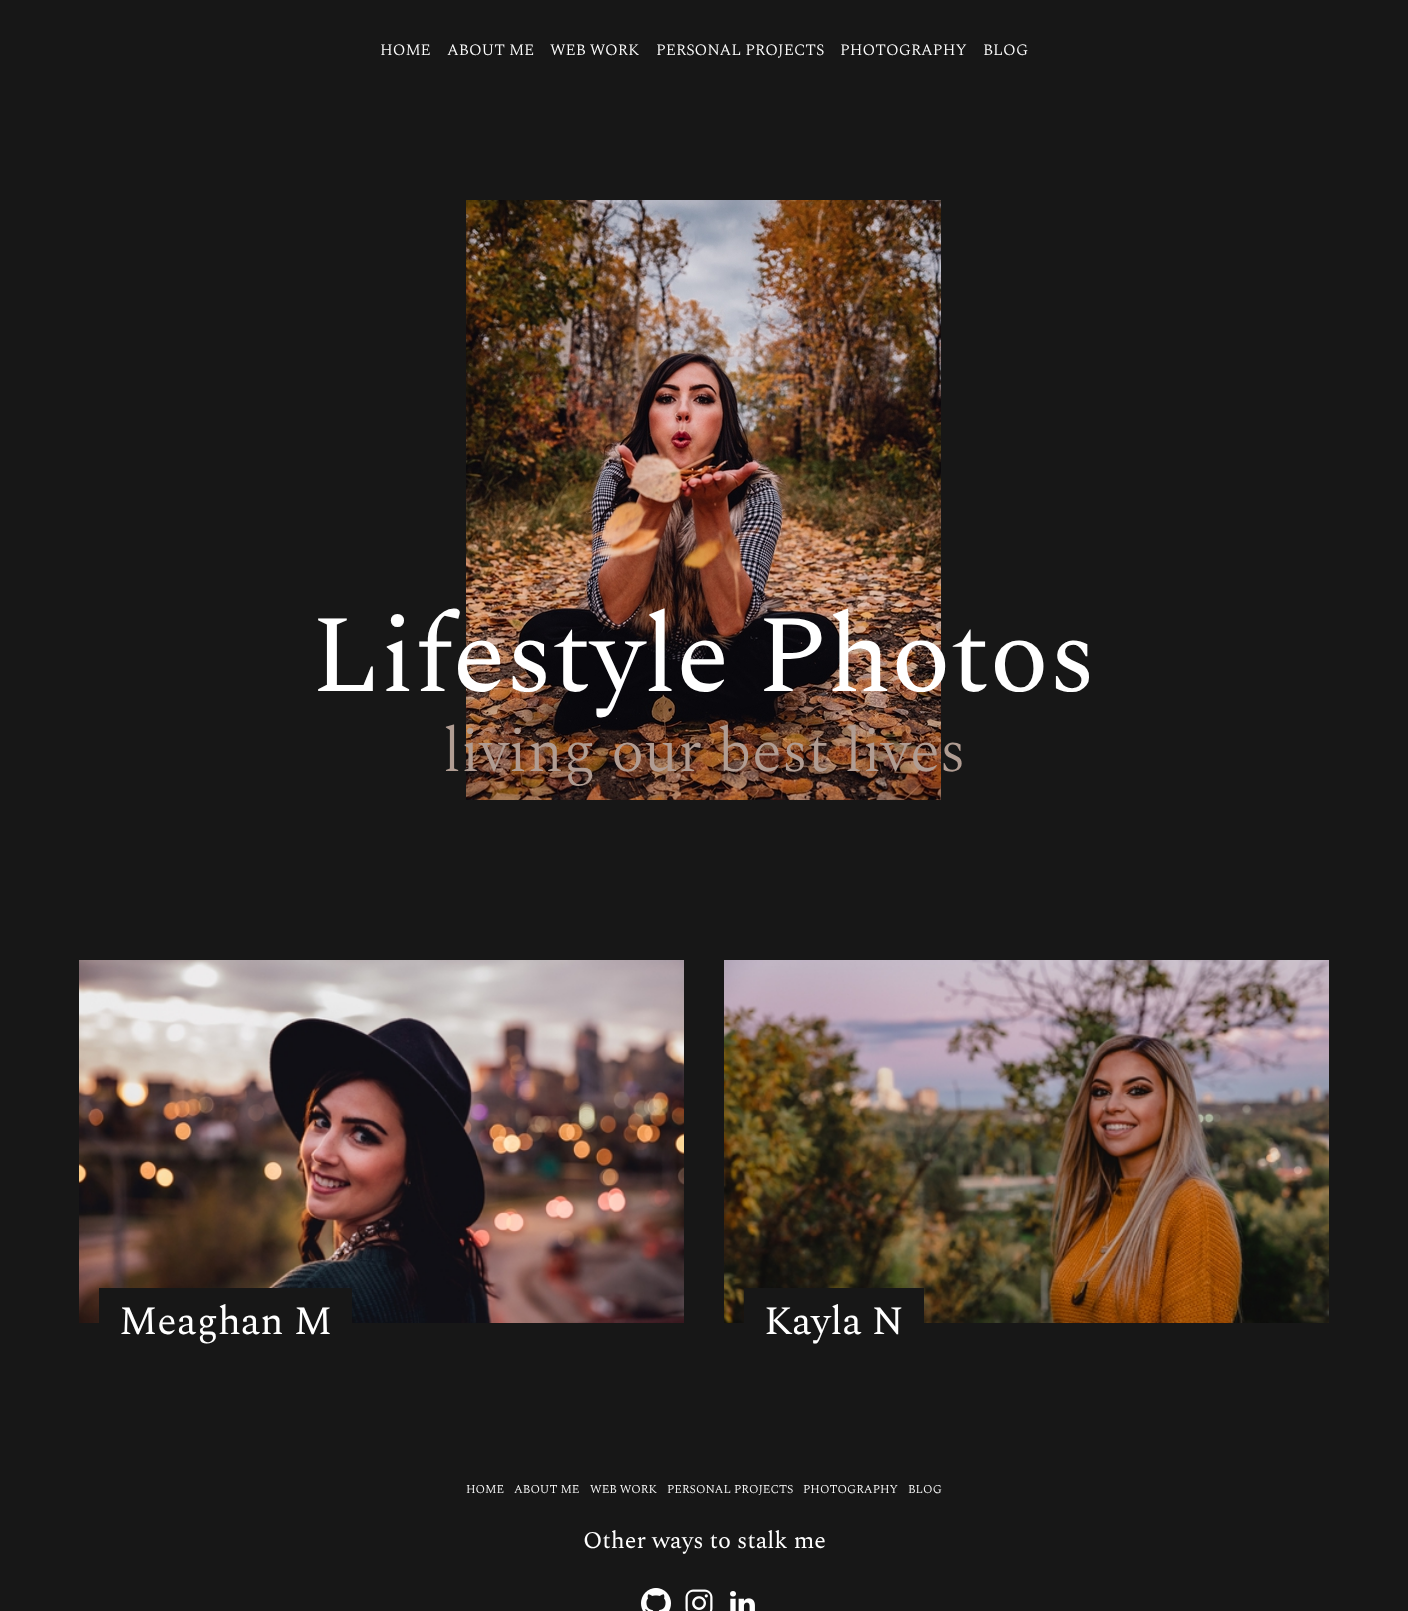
(async () => {
  const canvas = document.querySelector("canvas");
  canvas.width = 1408;
  canvas.height = 1611;
  const ctx = canvas.getContext("2d");
  ctx.miterLimit = 4;
  ctx.fontKerning = "normal";
  async function loadImage(src) {
    const img = new Image();
    img.src = src;
    await img.decode();
    return img;
  }

  ctx.fillStyle = "#171717";
  ctx.fillRect(0, 0, 1408, 1611);
  ctx.drawImage(await loadImage("img/1.png"), 466, 200, 475, 600);
  ctx.drawImage(await loadImage("img/2.png"), 79, 960, 605, 363);
  ctx.fillRect(99, 1288, 253, 35);
  ctx.drawImage(await loadImage("img/3.png"), 724, 960, 605, 363);
  ctx.fillRect(744, 1288, 180, 35);
  ctx.drawImage(await loadImage("img/4.png"), 641, 1588, 30, 23);
  ctx.drawImage(await loadImage("img/5.png"), 685, 1589, 28, 22);
  ctx.drawImage(await loadImage("img/6.png"), 730, 1591, 25, 20);
  ctx.font = "300 16px Spectral";
  ctx.fillStyle = "#ffffff";
  for (const [text, x, y] of [
    ["HOME", 380, 55],
    ["ABOUT ME", 447, 55],
    ["WEB WORK", 550, 55],
    ["PERSONAL PROJECTS", 656, 55],
    ["PHOTOGRAPHY", 840, 55],
    ["BLOG", 983, 55],
  ]) {
    ctx.fillText(text, x, y);
  }
  ctx.font = "110px Spectral";
  ctx.fillText("Lifestyle Photos", 311, 691);
  ctx.font = "300 62px Spectral";
  ctx.fillStyle = "#b19d93";
  ctx.fillText("living our best lives", 443, 771);
  ctx.font = "40px Spectral";
  ctx.fillStyle = "#ffffff";
  ctx.fillText("Meaghan M", 119, 1334);
  ctx.fillText("Kayla N", 764, 1334);
  ctx.font = "300 12px Spectral";
  for (const [text, x, y] of [
    ["HOME", 466, 1493],
    ["ABOUT ME", 514, 1493],
    ["WEB WORK", 590, 1493],
    ["PERSONAL PROJECTS", 667, 1493],
    ["PHOTOGRAPHY", 803, 1493],
    ["BLOG", 908, 1493],
  ]) {
    ctx.fillText(text, x, y);
  }
  ctx.font = "24px Spectral";
  ctx.fillText("Other ways to stalk me", 583, 1548);
})();
